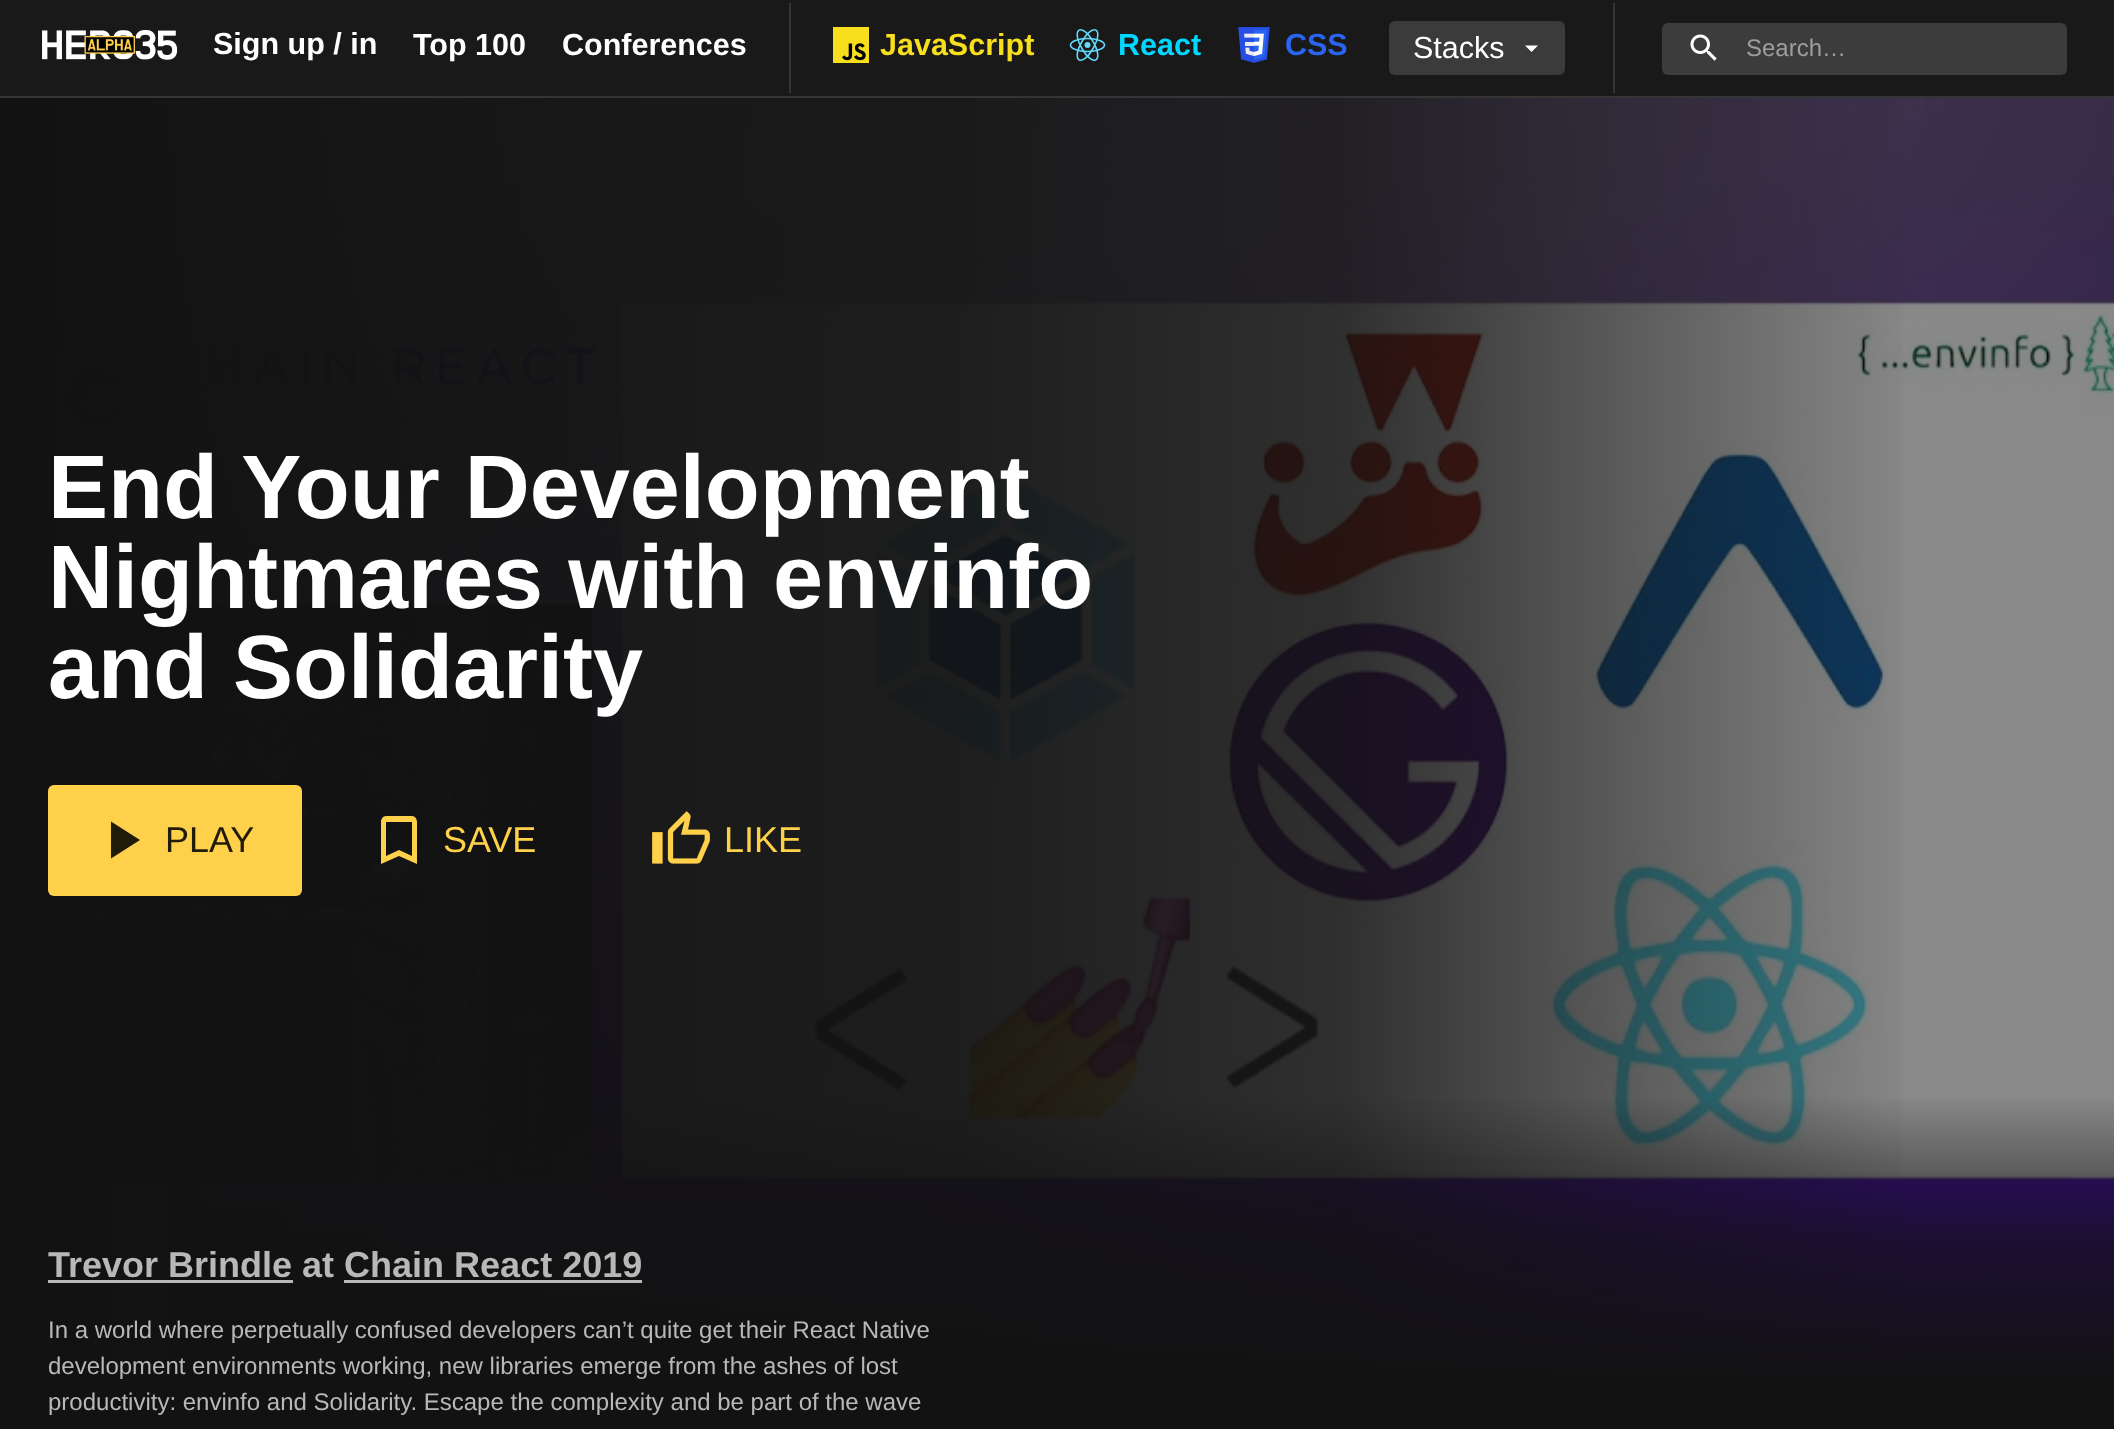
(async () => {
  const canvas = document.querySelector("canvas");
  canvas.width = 2114;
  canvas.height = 1429;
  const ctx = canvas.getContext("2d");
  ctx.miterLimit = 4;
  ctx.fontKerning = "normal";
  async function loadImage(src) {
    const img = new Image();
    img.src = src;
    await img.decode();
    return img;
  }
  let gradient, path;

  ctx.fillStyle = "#121212";
  ctx.fillRect(0, 0, 2114, 1429);
  ctx.fillStyle = "#191919";
  ctx.fillRect(0, 0, 2114, 96);
  ctx.fillStyle = "#353535";
  ctx.fillRect(0, 96, 2114, 2);
  ctx.drawImage(await loadImage("img/1.png"), 42, 30, 135, 30);
  ctx.fillRect(789, 3, 2, 90);
  ctx.drawImage(await loadImage("img/2.png"), 833, 27, 36, 36);
  ctx.fillStyle = "#61dafb";
  ctx.beginPath();
  ctx.arc(1087.5, 45, 3, 0, Math.PI * 2);
  ctx.fill();
  ctx.beginPath();
  ctx.ellipse(1087.5, 45, 17, 6.5, 0, 0, Math.PI * 2);
  ctx.strokeStyle = "#61dafb";
  ctx.lineWidth = 1.6;
  ctx.stroke();
  path = new Path2D("M1093 41.5C1104.5 61.5 1093 68 1082 48.5C1070.5 28.5 1082 22 1093 41.5ZM1093 48.5C1082 68 1070.5 61.5 1082 41.5C1093 22 1104.5 28.5 1093 48.5Z");
  ctx.stroke(path);
  ctx.drawImage(await loadImage("img/3.png"), 1238, 27, 32, 36);
  ctx.fillStyle = "rgba(255, 255, 255, 0.15)";
  ctx.beginPath();
  ctx.roundRect(1389, 21, 176, 54, 6);
  ctx.fill();
  ctx.fillStyle = "#ffffff";
  path = new Path2D("M1525 45.5L1531.5 52L1538 45.5Z");
  ctx.fill(path);
  ctx.fillStyle = "#353535";
  ctx.fillRect(1613, 3, 2, 90);
  ctx.fillStyle = "#3c3c3c";
  ctx.beginPath();
  ctx.roundRect(1662, 23, 405, 52, 6);
  ctx.fill();
  ctx.drawImage(await loadImage("img/4.png"), 1690, 34, 27, 27);
  ctx.drawImage(await loadImage("img/5.png"), 56, 98, 2058, 1282);
  gradient = ctx.createLinearGradient(0, 740, 1920, 740);
  gradient.addColorStop(0, "#121212");
  gradient.addColorStop(0.5, "rgba(18, 18, 18, 0.9)");
  gradient.addColorStop(0.7, "rgba(18, 18, 18, 0.75)");
  gradient.addColorStop(1, "rgba(18, 18, 18, 0)");
  ctx.fillStyle = gradient;
  ctx.fillRect(56, 98, 1847, 1282);
  gradient = ctx.createLinearGradient(1058, 1383, 1058, 1095);
  gradient.addColorStop(0, "#121212");
  gradient.addColorStop(0.5, "rgba(18, 18, 18, 0.7)");
  gradient.addColorStop(1, "rgba(18, 18, 18, 0)");
  ctx.fillStyle = gradient;
  ctx.fillRect(169, 1099, 1945, 281);
  ctx.fillStyle = "#ffd14a";
  ctx.beginPath();
  ctx.roundRect(48, 785, 254, 111, 6);
  ctx.fill();
  ctx.fillStyle = "#211b0a";
  path = new Path2D("M111 821.5V858.5L140 840Z");
  ctx.fill(path);
  ctx.fillStyle = "#ffd14a";
  path = new Path2D("M412 816H386C383 816 381 819 381 822V864L399 856L417 864V822C417 819 415 816 412 816ZM412 856L399 850L386 856V822H412Z");
  ctx.fill(path);
  ctx.drawImage(await loadImage("img/6.png"), 652, 811, 58, 53);
  ctx.fillStyle = "#b8b8b8";
  ctx.fillRect(48, 1280, 245, 3);
  ctx.fillRect(344, 1280, 298, 3);
  ctx.font = "bold 30.5px Liberation Sans";
  ctx.fillStyle = "#ffffff";
  for (const [text, x, y] of [
    ["Sign up / in", 213, 54],
    ["Top 100", 413, 55],
    ["Conferences", 562, 55],
  ]) {
    ctx.fillText(text, x, y);
  }
  ctx.fillStyle = "#f7df1e";
  ctx.fillText("JavaScript", 880, 55);
  ctx.fillStyle = "#00d8ff";
  ctx.fillText("React", 1118, 55);
  ctx.fillStyle = "#2965f1";
  ctx.fillText("CSS", 1285, 55);
  ctx.font = "30.5px Liberation Sans";
  ctx.fillStyle = "#ffffff";
  ctx.fillText("Stacks", 1413, 58);
  ctx.font = "24px Liberation Sans";
  ctx.fillStyle = "#9e9e9e";
  ctx.fillText("Search…", 1746, 56);
  ctx.font = "bold 90px Liberation Sans";
  ctx.fillStyle = "#ffffff";
  for (const [text, x, y] of [
    ["End Your Development", 48, 518],
    ["Nightmares with envinfo", 48, 608],
    ["and Solidarity", 48, 698],
  ]) {
    ctx.fillText(text, x, y);
  }
  ctx.font = "36px Liberation Sans";
  ctx.fillStyle = "#211b0a";
  ctx.fillText("PLAY", 165, 852);
  ctx.fillStyle = "#ffd14a";
  ctx.fillText("SAVE", 443, 852);
  ctx.fillText("LIKE", 724, 852);
  ctx.font = "bold 36px Liberation Sans";
  ctx.fillStyle = "#b8b8b8";
  ctx.fillText("Trevor Brindle at Chain React 2019", 48, 1277);
  ctx.font = "24px Liberation Sans";
  for (const [text, x, y] of [
    ["In a world where perpetually confused developers can’t quite get their React Native", 48, 1338],
    ["development environments working, new libraries emerge from the ashes of lost", 48, 1374],
    ["productivity: envinfo and Solidarity. Escape the complexity and be part of the wave", 48, 1410],
  ]) {
    ctx.fillText(text, x, y);
  }
})();
